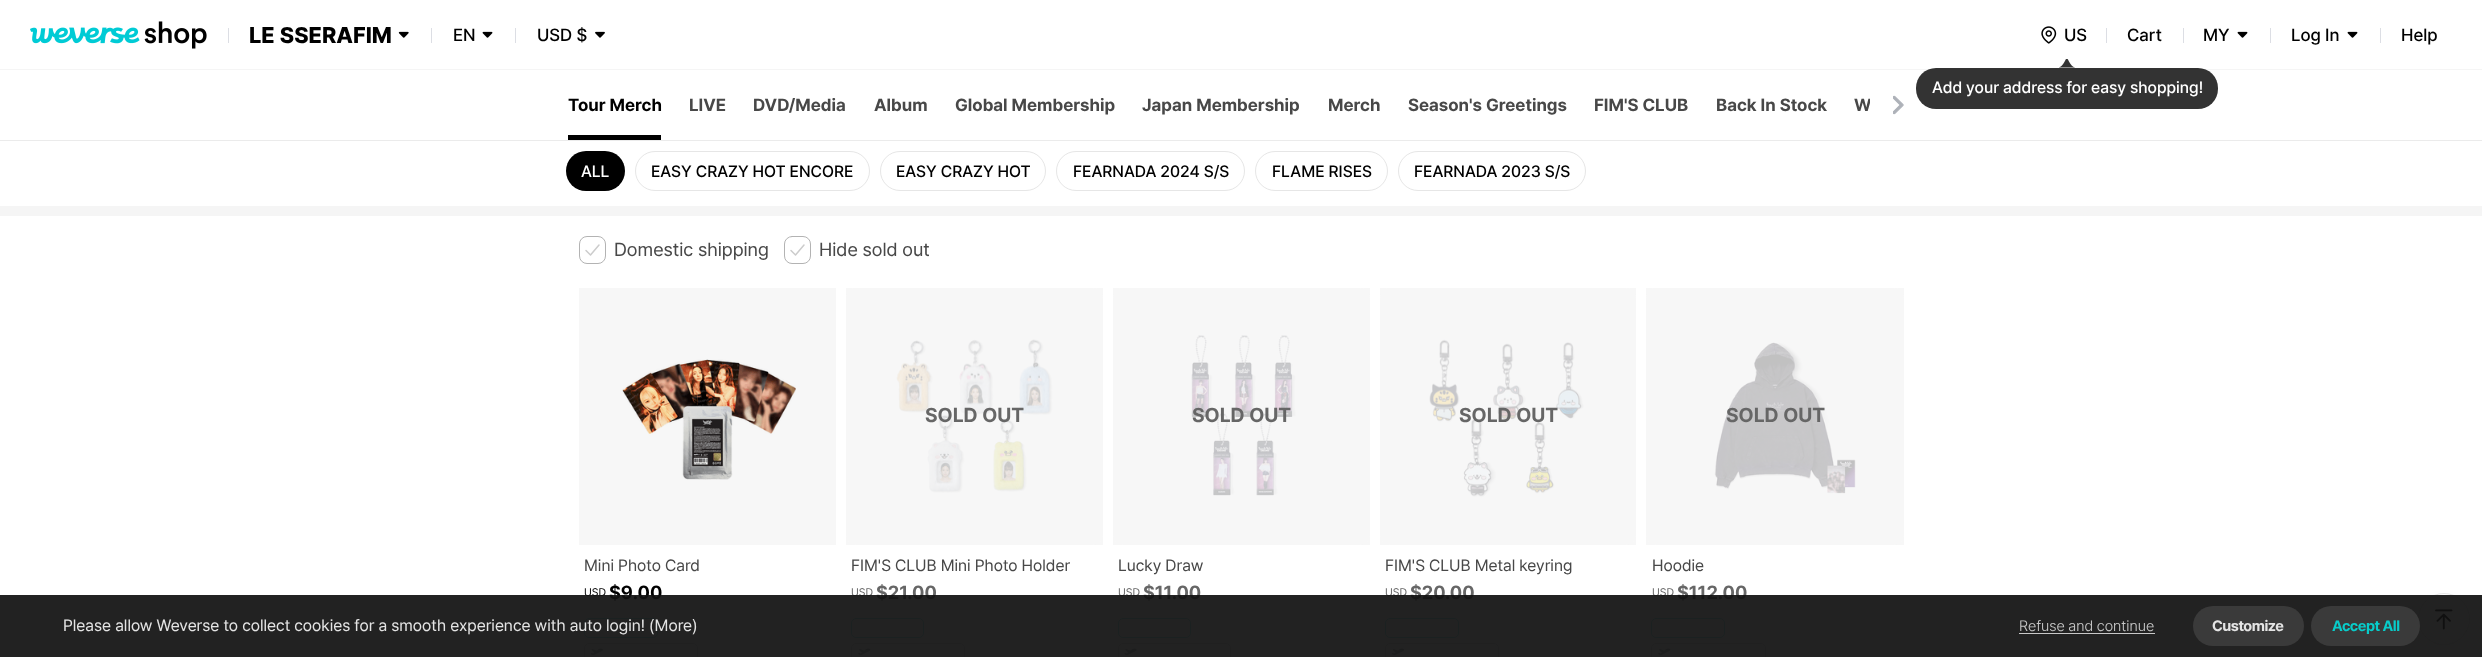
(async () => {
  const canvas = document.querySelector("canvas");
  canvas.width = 2482;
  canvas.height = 657;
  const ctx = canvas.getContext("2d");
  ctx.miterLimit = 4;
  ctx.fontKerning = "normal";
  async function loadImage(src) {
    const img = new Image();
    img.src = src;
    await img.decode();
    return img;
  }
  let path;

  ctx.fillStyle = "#ffffff";
  ctx.fillRect(0, 0, 2482, 657);
  ctx.fillStyle = "#f5f5f5";
  ctx.fillRect(0, 69, 2482, 1);
  ctx.drawImage(await loadImage("img/1.png"), 30, 21, 177, 28);
  ctx.fillStyle = "#dcdee4";
  ctx.fillRect(228, 28, 1, 15);
  ctx.drawImage(await loadImage("img/2.png"), 398, 31, 11, 7);
  ctx.fillRect(431, 28, 1, 15);
  ctx.drawImage(await loadImage("img/3.png"), 482, 31, 11, 7);
  ctx.fillRect(515, 28, 1, 15);
  ctx.drawImage(await loadImage("img/4.png"), 595, 31, 10, 7);
  ctx.drawImage(await loadImage("img/5.png"), 2041, 26, 16, 18);
  ctx.fillStyle = "rgba(0, 0, 0, 0.8)";
  ctx.beginPath();
  ctx.roundRect(1916, 68, 302, 41, 20);
  ctx.fill();
  ctx.drawImage(await loadImage("img/6.png"), 2059, 59, 16, 9);
  ctx.fillStyle = "#dcdee4";
  ctx.fillRect(2106, 28, 1, 15);
  ctx.fillRect(2183, 28, 1, 15);
  ctx.drawImage(await loadImage("img/3.png"), 2237, 31, 11, 7);
  ctx.fillRect(2270, 28, 1, 15);
  ctx.drawImage(await loadImage("img/3.png"), 2347, 31, 11, 7);
  for (const [x, y, w, h, color] of [
    [2380, 28, 1, 15, "#dcdee4"],
    [0, 140, 2482, 1, "#ebebeb"],
    [568, 135, 93, 5, "#000000"],
  ]) {
    ctx.fillStyle = color;
    ctx.fillRect(x, y, w, h);
  }
  ctx.drawImage(await loadImage("img/7.png"), 1893, 95, 11, 20);
  ctx.beginPath();
  ctx.roundRect(566, 151, 59, 40, 20);
  ctx.fill();
  ctx.beginPath();
  ctx.roundRect(635.5, 151.5, 234, 39, 19.5);
  ctx.strokeStyle = "#e6e6e6";
  ctx.stroke();
  ctx.beginPath();
  ctx.roundRect(880.5, 151.5, 165, 39, 19.5);
  ctx.stroke();
  ctx.beginPath();
  ctx.roundRect(1056.5, 151.5, 188, 39, 19.5);
  ctx.stroke();
  ctx.beginPath();
  ctx.roundRect(1255.5, 151.5, 132, 39, 19.5);
  ctx.stroke();
  ctx.beginPath();
  ctx.roundRect(1398.5, 151.5, 187, 39, 19.5);
  ctx.stroke();
  ctx.fillStyle = "#f5f5f5";
  ctx.fillRect(0, 206, 2482, 10);
  ctx.beginPath();
  ctx.roundRect(579.5, 236.5, 26, 27, 7.5);
  ctx.strokeStyle = "#b3b3b3";
  ctx.stroke();
  path = new Path2D("M586 250.5L590.5 255L599 245");
  ctx.strokeStyle = "#cccccc";
  ctx.lineWidth = 1.5;
  ctx.lineCap = "round";
  ctx.lineJoin = "round";
  ctx.stroke(path);
  ctx.beginPath();
  ctx.roundRect(784.5, 236.5, 26, 27, 7.5);
  ctx.strokeStyle = "#b3b3b3";
  ctx.lineWidth = 1;
  ctx.lineJoin = "miter";
  ctx.stroke();
  path = new Path2D("M791 250.5L795.5 255L804 245");
  ctx.strokeStyle = "#cccccc";
  ctx.lineWidth = 1.5;
  ctx.lineJoin = "round";
  ctx.stroke(path);
  ctx.drawImage(await loadImage("img/8.png"), 622, 359, 174, 121);
  ctx.fillStyle = "rgba(0, 0, 0, 0.03)";
  ctx.fillRect(579, 288, 257, 257);
  ctx.beginPath();
  ctx.roundRect(584.5, 618.5, 73, 19, 4.5);
  ctx.strokeStyle = "#9cebea";
  ctx.lineWidth = 1;
  ctx.lineJoin = "miter";
  ctx.stroke();
  ctx.drawImage(await loadImage("img/9.png"), 591, 648, 12, 8);
  ctx.beginPath();
  ctx.roundRect(584.5, 643.5, 113, 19, 4.5);
  ctx.strokeStyle = "#dcdee4";
  ctx.stroke();
  ctx.drawImage(await loadImage("img/10.png"), 896, 339, 157, 154);
  ctx.fillRect(846, 288, 257, 257);
  ctx.fillStyle = "rgba(247, 247, 247, 0.78)";
  ctx.beginPath();
  ctx.roundRect(846, 288, 257, 257, 10);
  ctx.fill();
  ctx.beginPath();
  ctx.roundRect(851.5, 618.5, 72, 19, 4.5);
  ctx.strokeStyle = "#9cebea";
  ctx.stroke();
  ctx.drawImage(await loadImage("img/11.png"), 858, 648, 13, 8);
  ctx.beginPath();
  ctx.roundRect(851.5, 643.5, 113, 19, 4.5);
  ctx.strokeStyle = "#dcdee4";
  ctx.stroke();
  ctx.drawImage(await loadImage("img/12.png"), 1191, 335, 105, 161);
  ctx.fillStyle = "rgba(0, 0, 0, 0.03)";
  ctx.fillRect(1113, 288, 257, 257);
  ctx.fillStyle = "rgba(247, 247, 247, 0.78)";
  ctx.beginPath();
  ctx.roundRect(1113, 288, 257, 257, 10);
  ctx.fill();
  ctx.beginPath();
  ctx.roundRect(1118.5, 618.5, 72, 19, 4.5);
  ctx.strokeStyle = "#9cebea";
  ctx.stroke();
  ctx.drawImage(await loadImage("img/13.png"), 1124, 648, 13, 8);
  ctx.beginPath();
  ctx.roundRect(1118.5, 643.5, 112, 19, 4.5);
  ctx.strokeStyle = "#dcdee4";
  ctx.stroke();
  ctx.drawImage(await loadImage("img/14.png"), 1429, 339, 155, 159);
  ctx.fillStyle = "rgba(0, 0, 0, 0.03)";
  ctx.fillRect(1380, 288, 256, 257);
  ctx.fillStyle = "rgba(247, 247, 247, 0.78)";
  ctx.beginPath();
  ctx.roundRect(1380, 288, 256, 257, 10);
  ctx.fill();
  ctx.beginPath();
  ctx.roundRect(1385.5, 618.5, 73, 19, 4.5);
  ctx.strokeStyle = "#9cebea";
  ctx.stroke();
  ctx.drawImage(await loadImage("img/15.png"), 1392, 648, 12, 8);
  ctx.beginPath();
  ctx.roundRect(1385.5, 643.5, 113, 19, 4.5);
  ctx.strokeStyle = "#dcdee4";
  ctx.stroke();
  ctx.drawImage(await loadImage("img/16.png"), 1714, 342, 142, 152);
  ctx.fillStyle = "rgba(0, 0, 0, 0.03)";
  ctx.fillRect(1646, 288, 258, 257);
  ctx.fillStyle = "rgba(247, 247, 247, 0.78)";
  ctx.beginPath();
  ctx.roundRect(1646, 288, 258, 257, 10);
  ctx.fill();
  ctx.beginPath();
  ctx.roundRect(1651.5, 618.5, 73, 19, 4.5);
  ctx.strokeStyle = "#9cebea";
  ctx.stroke();
  ctx.drawImage(await loadImage("img/11.png"), 1658, 648, 13, 8);
  ctx.beginPath();
  ctx.roundRect(1651.5, 643.5, 114, 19, 4.5);
  ctx.strokeStyle = "#dcdee4";
  ctx.stroke();
  ctx.fillStyle = "rgba(0, 0, 0, 0.06)";
  ctx.filter = "blur(5px)";
  ctx.beginPath();
  ctx.roundRect(2418, 598, 52, 52, 26);
  ctx.fill();
  ctx.filter = "none";
  ctx.fillStyle = "#ffffff";
  ctx.beginPath();
  ctx.arc(2444, 619, 26, 0, Math.PI * 2);
  ctx.fill();
  ctx.drawImage(await loadImage("img/17.png"), 2435, 609, 18, 21);
  ctx.beginPath();
  ctx.arc(2444, 619, 25.5, 0, Math.PI * 2);
  ctx.strokeStyle = "rgba(0, 0, 0, 0.1)";
  ctx.stroke();
  ctx.font = "800 22.5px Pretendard";
  ctx.fillStyle = "#000000";
  ctx.fillText("LE SSERAFIM", 249, 43);
  ctx.font = "500 17.5px Pretendard";
  for (const [text, x, y] of [
    ["EN", 453, 41],
    ["USD $", 537, 41],
    ["US", 2064, 41],
  ]) {
    ctx.fillText(text, x, y);
  }
  ctx.font = "500 16.25px Pretendard";
  ctx.fillStyle = "#ffffff";
  ctx.fillText("Add your address for easy shopping!", 1932, 93);
  ctx.font = "500 17.5px Pretendard";
  ctx.fillStyle = "#000000";
  for (const [text, x, y] of [
    ["Cart", 2127, 41],
    ["MY", 2203, 41],
    ["Log In", 2291, 41],
    ["Help", 2401, 41],
  ]) {
    ctx.fillText(text, x, y);
  }
  ctx.font = "bold 17.5px Pretendard";
  ctx.fillText("Tour Merch", 568, 111);
  ctx.fillStyle = "#484848";
  for (const [text, x, y] of [
    ["LIVE", 689, 111],
    ["DVD/Media", 753, 111],
    ["Album", 874, 111],
    ["Global Membership", 955, 111],
    ["Japan Membership", 1142, 111],
    ["Merch", 1328, 111],
    ["Season's Greetings", 1408, 111],
    ["FIM'S CLUB", 1594, 111],
    ["Back In Stock", 1716, 111],
    ["W", 1854, 111],
  ]) {
    ctx.fillText(text, x, y);
  }
  ctx.fillStyle = "#ffffff";
  ctx.fillRect(1870, 98, 2, 6);
  ctx.font = "500 16.25px Pretendard";
  ctx.fillText("ALL", 581, 177);
  ctx.fillStyle = "#000000";
  for (const [text, x, y] of [
    ["EASY CRAZY HOT ENCORE", 651, 177],
    ["EASY CRAZY HOT", 896, 177],
    ["FEARNADA 2024 S/S", 1073, 177],
    ["FLAME RISES", 1272, 177],
    ["FEARNADA 2023 S/S", 1414, 177],
  ]) {
    ctx.fillText(text, x, y);
  }
  ctx.font = "18.75px Pretendard";
  ctx.fillStyle = "#484848";
  ctx.fillText("Domestic shipping", 614, 256);
  ctx.fillText("Hide sold out", 819, 256);
  ctx.font = "16.25px Pretendard";
  ctx.fillText("Mini Photo Card", 584, 571);
  ctx.font = "11px Pretendard";
  ctx.fillStyle = "#000000";
  ctx.fillText("USD", 584, 596);
  ctx.font = "bold 18.75px Pretendard";
  ctx.fillText("$9.00", 609, 599);
  ctx.font = "bold 20px Pretendard";
  ctx.fillStyle = "#666666";
  ctx.fillText("SOLD OUT", 925, 422);
  ctx.font = "16.25px Pretendard";
  ctx.fillStyle = "#484848";
  ctx.fillText("FIM'S CLUB Mini Photo Holder", 851, 571);
  ctx.font = "11px Pretendard";
  ctx.fillStyle = "#666666";
  ctx.fillText("USD", 851, 596);
  ctx.font = "bold 18.75px Pretendard";
  ctx.fillText("$21.00", 876, 599);
  ctx.font = "bold 20px Pretendard";
  ctx.fillText("SOLD OUT", 1192, 422);
  ctx.font = "16.25px Pretendard";
  ctx.fillStyle = "#484848";
  ctx.fillText("Lucky Draw", 1118, 571);
  ctx.font = "11px Pretendard";
  ctx.fillStyle = "#666666";
  ctx.fillText("USD", 1118, 596);
  ctx.font = "bold 18.75px Pretendard";
  ctx.fillText("$11.00", 1143, 599);
  ctx.font = "bold 20px Pretendard";
  ctx.fillText("SOLD OUT", 1459, 422);
  ctx.font = "16.25px Pretendard";
  ctx.fillStyle = "#484848";
  ctx.fillText("FIM'S CLUB Metal keyring", 1385, 571);
  ctx.font = "11px Pretendard";
  ctx.fillStyle = "#666666";
  ctx.fillText("USD", 1385, 596);
  ctx.font = "bold 18.75px Pretendard";
  ctx.fillText("$20.00", 1410, 599);
  ctx.font = "bold 20px Pretendard";
  ctx.fillText("SOLD OUT", 1726, 422);
  ctx.font = "16.25px Pretendard";
  ctx.fillStyle = "#484848";
  ctx.fillText("Hoodie", 1652, 571);
  ctx.font = "11px Pretendard";
  ctx.fillStyle = "#666666";
  ctx.fillText("USD", 1652, 596);
  ctx.font = "bold 18.75px Pretendard";
  ctx.fillText("$112.00", 1677, 599);
  ctx.fillStyle = "rgba(17, 17, 17, 0.93)";
  ctx.fillRect(0, 595, 2482, 62);
  ctx.font = "16.25px Pretendard";
  ctx.fillStyle = "#e4e4e4";
  ctx.fillText("Please allow Weverse to collect cookies for a smooth experience with auto login! (More)", 63, 631);
  ctx.font = "300 15px Pretendard";
  ctx.fillStyle = "#c8c8c8";
  ctx.fillText("Refuse and continue", 2019, 631);
  ctx.fillRect(2019, 633, 136, 1);
  ctx.fillStyle = "#3a3a3a";
  ctx.beginPath();
  ctx.roundRect(2193, 606, 111, 40, 20);
  ctx.fill();
  ctx.letterSpacing = "-0.5px";
  ctx.font = "bold 15px Pretendard";
  ctx.fillStyle = "#e4e4e4";
  ctx.fillText("Customize", 2212, 631);
  ctx.fillStyle = "#3a3a3a";
  ctx.beginPath();
  ctx.roundRect(2311, 606, 109, 40, 20);
  ctx.fill();
  ctx.fillStyle = "#08ccca";
  ctx.fillText("Accept All", 2332, 631);
})();
